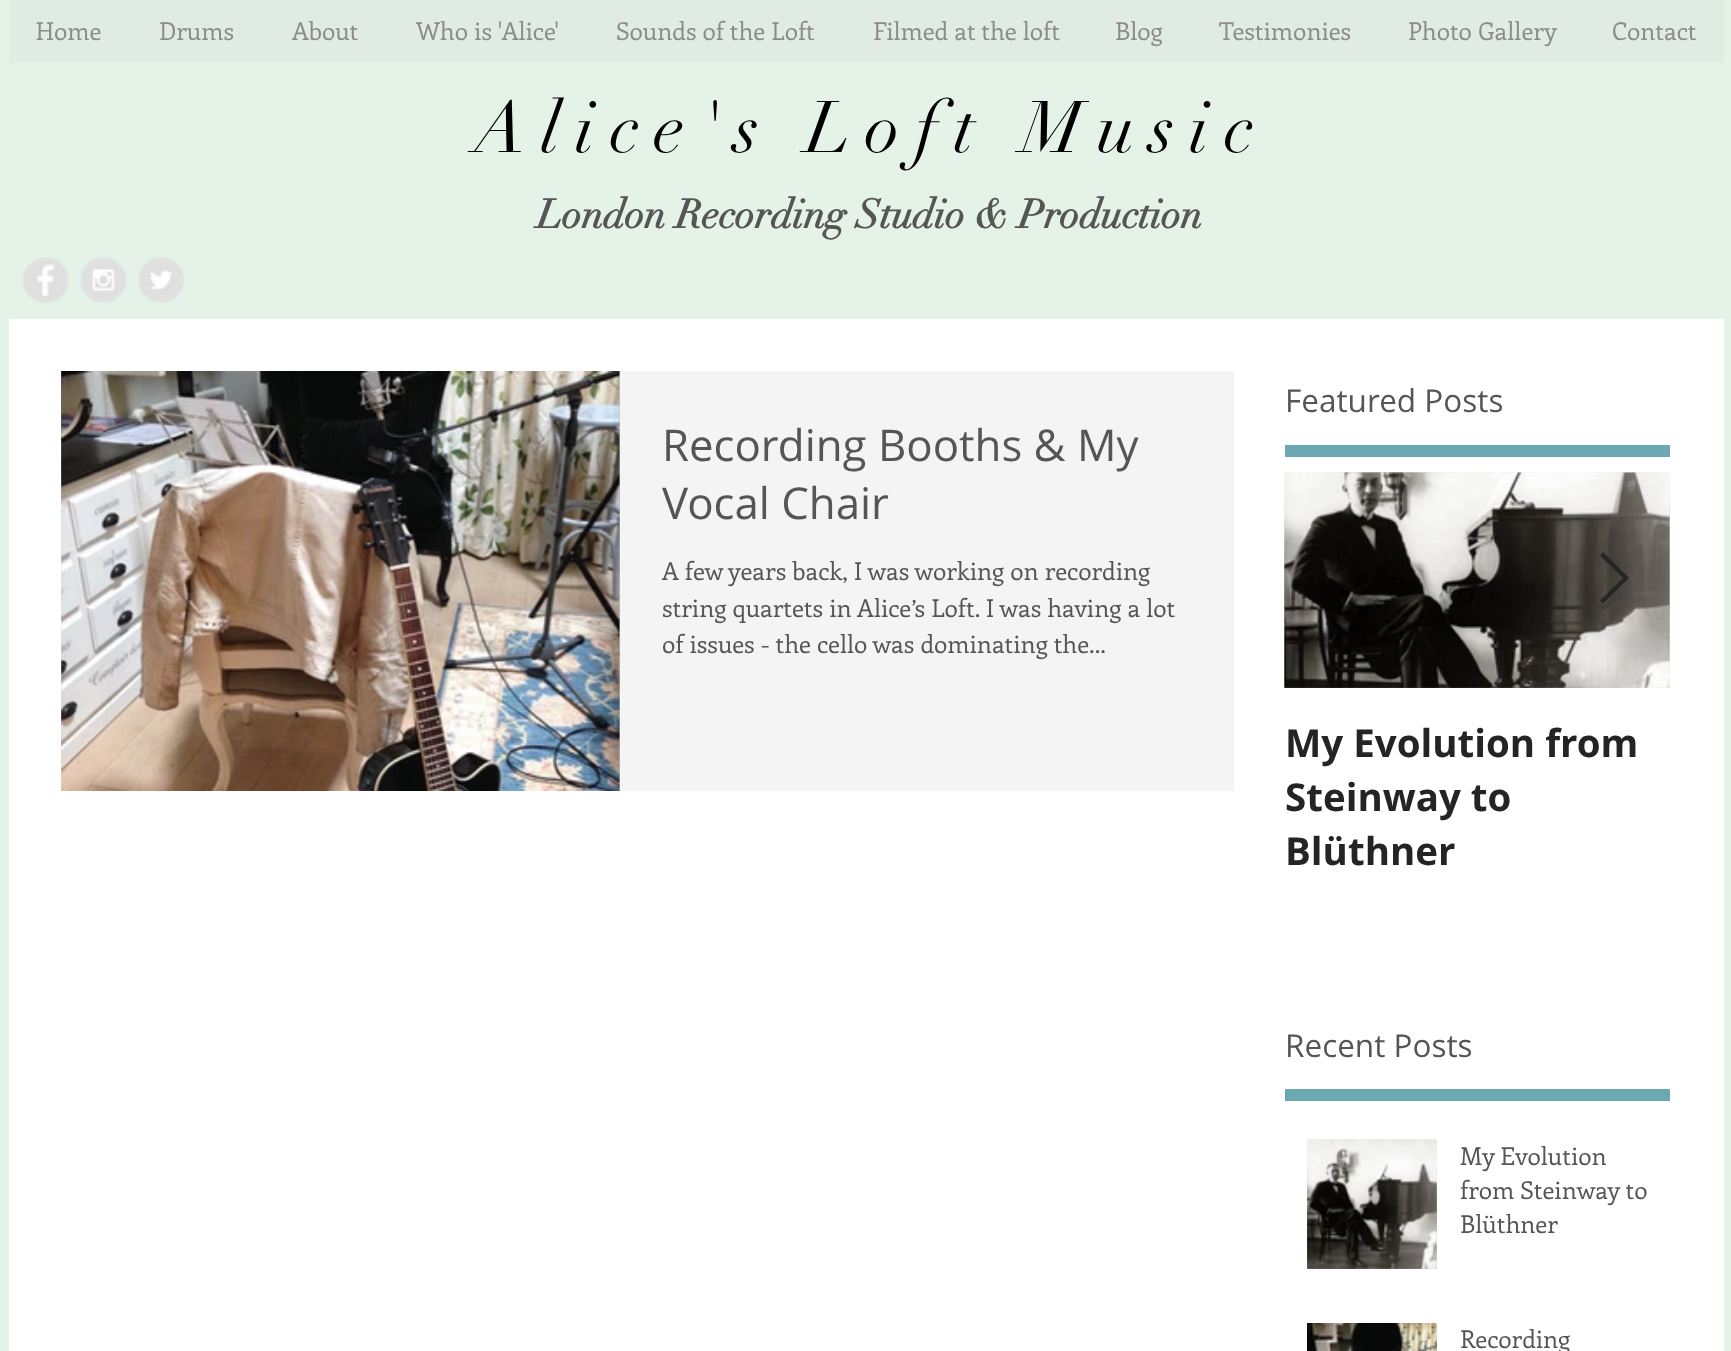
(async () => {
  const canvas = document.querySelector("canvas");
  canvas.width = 1731;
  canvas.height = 1351;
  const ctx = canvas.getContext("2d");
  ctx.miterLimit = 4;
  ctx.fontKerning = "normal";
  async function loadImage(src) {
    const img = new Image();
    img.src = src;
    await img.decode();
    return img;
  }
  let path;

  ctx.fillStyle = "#e4f2e7";
  ctx.fillRect(0, 0, 1731, 1351);
  ctx.fillStyle = "#e0ebe3";
  ctx.fillRect(9, 0, 1715, 63);
  ctx.drawImage(await loadImage("img/1.png"), 22, 257, 47, 46);
  ctx.drawImage(await loadImage("img/2.png"), 80, 257, 46, 46);
  ctx.drawImage(await loadImage("img/3.png"), 138, 257, 46, 46);
  ctx.fillStyle = "#ffffff";
  ctx.fillRect(9, 319, 1715, 1032);
  ctx.drawImage(await loadImage("img/4.png"), 61, 371, 559, 420);
  ctx.drawImage(await loadImage("img/5.png"), 61, 371, 559, 420);
  ctx.fillStyle = "#f4f4f4";
  ctx.fillRect(620, 371, 614, 420);
  ctx.fillStyle = "#6ba8b2";
  ctx.fillRect(1285, 445, 385, 12);
  ctx.drawImage(await loadImage("img/6.png"), 1284, 472, 386, 216);
  ctx.drawImage(await loadImage("img/7.png"), 1284, 472, 386, 216);
  ctx.fillStyle = "rgba(36, 36, 36, 0.9)";
  path = new Path2D("M1601 555L1603 553L1628 578L1603 603L1601 601L1624 578Z");
  ctx.fill(path);
  path = new Path2D("M1601 555.5L1603 553L1628 578L1603 602.5L1601 600.5L1624 578Z");
  ctx.strokeStyle = "rgba(36, 36, 36, 0.9)";
  ctx.lineWidth = 1.4;
  ctx.stroke(path);
  ctx.fillStyle = "#6ba8b2";
  ctx.fillRect(1285, 1089, 385, 12);
  ctx.drawImage(await loadImage("img/8.png"), 1307, 1139, 130, 130);
  ctx.drawImage(await loadImage("img/9.png"), 1307, 1139, 130, 130);
  ctx.drawImage(await loadImage("img/10.png"), 1307, 1323, 130, 28);
  ctx.font = "24.5px Enriqueta";
  ctx.fillStyle = "#8b8b8b";
  for (const [text, x, y] of [
    ["Home", 36, 40],
    ["Drums", 159, 40],
    ["About", 292, 40],
    ["Who is 'Alice'", 416, 40],
    ["Sounds of the Loft", 616, 40],
    ["Filmed at the loft", 873, 40],
    ["Blog", 1115, 40],
    ["Testimonies", 1219, 40],
    ["Photo Gallery", 1408, 40],
    ["Contact", 1612, 40],
  ]) {
    ctx.fillText(text, x, y);
  }
  ctx.letterSpacing = "14.75px";
  ctx.font = "71.75px didot";
  ctx.fillStyle = "#000000";
  ctx.fillText("Alice's Loft Music", 474, 152);
  ctx.letterSpacing = "0px";
  ctx.font = "bold 40.25px didot";
  ctx.fillStyle = "#555555";
  ctx.fillText("London Recording Studio & Production", 537, 228);
  ctx.font = "31.5px Open Sans";
  ctx.fillText("Featured Posts", 1285, 412);
  ctx.font = "43.75px Open Sans";
  ctx.fillText("Recording Booths & My", 662, 461);
  ctx.fillText("Vocal Chair", 662, 519);
  ctx.font = "24.5px Enriqueta";
  for (const [text, x, y] of [
    ["A few years back, I was working on recording", 662, 580],
    ["string quartets in Alice’s Loft. I was having a lot", 662, 617],
    ["of issues - the cello was dominating the...", 662, 653],
  ]) {
    ctx.fillText(text, x, y);
  }
  ctx.font = "bold 38.5px Open Sans";
  ctx.fillStyle = "#242424";
  for (const [text, x, y] of [
    ["My Evolution from", 1285, 757],
    ["Steinway to", 1285, 811],
    ["Blüthner", 1285, 865],
  ]) {
    ctx.fillText(text, x, y);
  }
  ctx.font = "31.5px Open Sans";
  ctx.fillStyle = "#555555";
  ctx.fillText("Recent Posts", 1285, 1057);
  ctx.font = "24.5px Enriqueta";
  for (const [text, x, y] of [
    ["My Evolution", 1460, 1165],
    ["from Steinway to", 1460, 1199],
    ["Blüthner", 1460, 1233],
    ["Recording", 1460, 1348],
  ]) {
    ctx.fillText(text, x, y);
  }
})();
